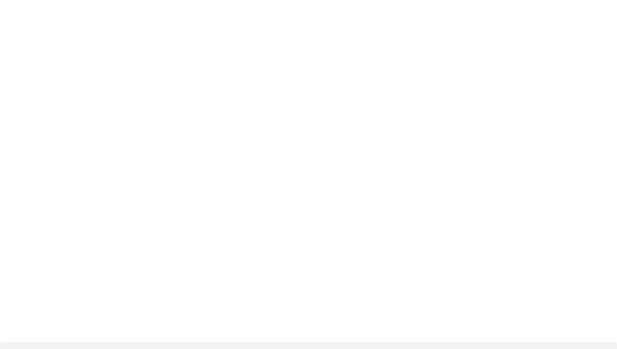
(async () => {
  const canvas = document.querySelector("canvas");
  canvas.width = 617;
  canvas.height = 349;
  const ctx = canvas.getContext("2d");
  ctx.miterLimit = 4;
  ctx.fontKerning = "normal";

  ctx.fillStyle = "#ffffff";
  ctx.fillRect(0, 0, 617, 349);
  ctx.fillStyle = "#f2f2f2";
  ctx.beginPath();
  ctx.roundRect(0, 342, 617, 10, 3);
  ctx.fill();
})();
